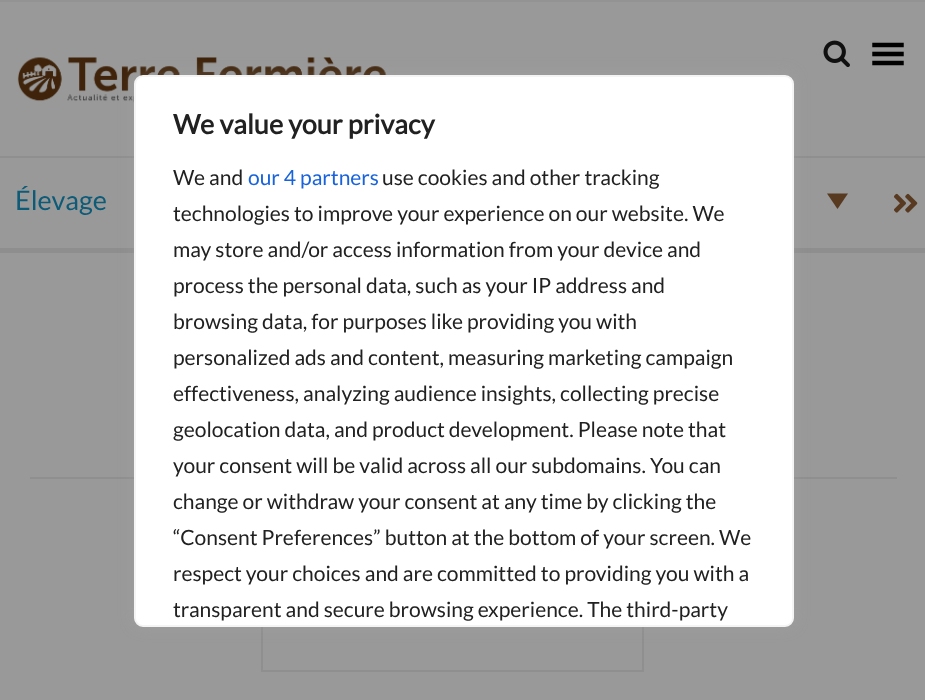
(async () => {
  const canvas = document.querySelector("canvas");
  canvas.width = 925;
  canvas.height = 700;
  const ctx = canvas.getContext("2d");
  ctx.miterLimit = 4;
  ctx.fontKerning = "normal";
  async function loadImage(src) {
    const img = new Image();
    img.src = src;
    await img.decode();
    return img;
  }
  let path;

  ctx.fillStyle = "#999999";
  ctx.fillRect(0, 0, 925, 700);
  ctx.fillStyle = "#939393";
  ctx.fillRect(0, 0, 925, 2);
  ctx.fillStyle = "#8f8f8f";
  ctx.fillRect(0, 156, 925, 2);
  ctx.drawImage(await loadImage("img/1.png"), 823, 40, 27, 27);
  ctx.drawImage(await loadImage("img/2.png"), 872, 42, 32, 24);
  ctx.drawImage(await loadImage("img/3.png"), 17, 57, 370, 46);
  ctx.fillStyle = "#8e8e8e";
  ctx.fillRect(0, 248, 925, 5);
  ctx.fillStyle = "#583a21";
  path = new Path2D("M848 193.5L837.5 209L827 193.5Z");
  ctx.fill(path);
  ctx.drawImage(await loadImage("img/4.png"), 894, 193, 24, 20);
  ctx.fillStyle = "#8f8f8f";
  ctx.fillRect(30, 477, 104, 2);
  ctx.fillRect(794, 477, 103, 2);
  ctx.strokeStyle = "#8f8f8f";
  ctx.lineWidth = 2;
  ctx.strokeRect(262, 594, 381, 77);
  ctx.fillStyle = "rgba(172, 171, 171, 0.3)";
  ctx.filter = "blur(7.5px)";
  ctx.beginPath();
  ctx.roundRect(134, 74, 660, 552, 9);
  ctx.fill();
  ctx.filter = "none";
  ctx.fillStyle = "#ffffff";
  ctx.beginPath();
  ctx.roundRect(135, 76, 658, 550, 8);
  ctx.fill();
  ctx.strokeStyle = "#f4f4f4";
  ctx.stroke();
  ctx.font = "27px Lato";
  ctx.fillStyle = "#0e5b78";
  ctx.fillText("Élevage", 15, 210);
  ctx.font = "bold 27px Lato";
  ctx.fillStyle = "#212121";
  ctx.fillText("We value your privacy", 173, 134);
  ctx.font = "21px Lato";
  ctx.fillText("We and", 173, 185);
  ctx.fillStyle = "#1863dc";
  ctx.fillText("our 4 partners", 248, 185);
  ctx.fillStyle = "#212121";
  for (const [text, x, y] of [
    ["use cookies and other tracking", 382, 185],
    ["technologies to improve your experience on our website. We", 173, 221],
    ["may store and/or access information from your device and", 173, 257],
    ["process the personal data, such as your IP address and", 173, 293],
    ["browsing data, for purposes like providing you with", 173, 329],
    ["personalized ads and content, measuring marketing campaign", 173, 365],
    ["effectiveness, analyzing audience insights, collecting precise", 173, 401],
    ["geolocation data, and product development. Please note that", 173, 437],
    ["your consent will be valid across all our subdomains. You can", 173, 473],
    ["change or withdraw your consent at any time by clicking the", 173, 509],
    ["“Consent Preferences” button at the bottom of your screen. We", 173, 545],
    ["respect your choices and are committed to providing you with a", 173, 581],
    ["transparent and secure browsing experience. The third-party", 173, 617],
  ]) {
    ctx.fillText(text, x, y);
  }
})();
